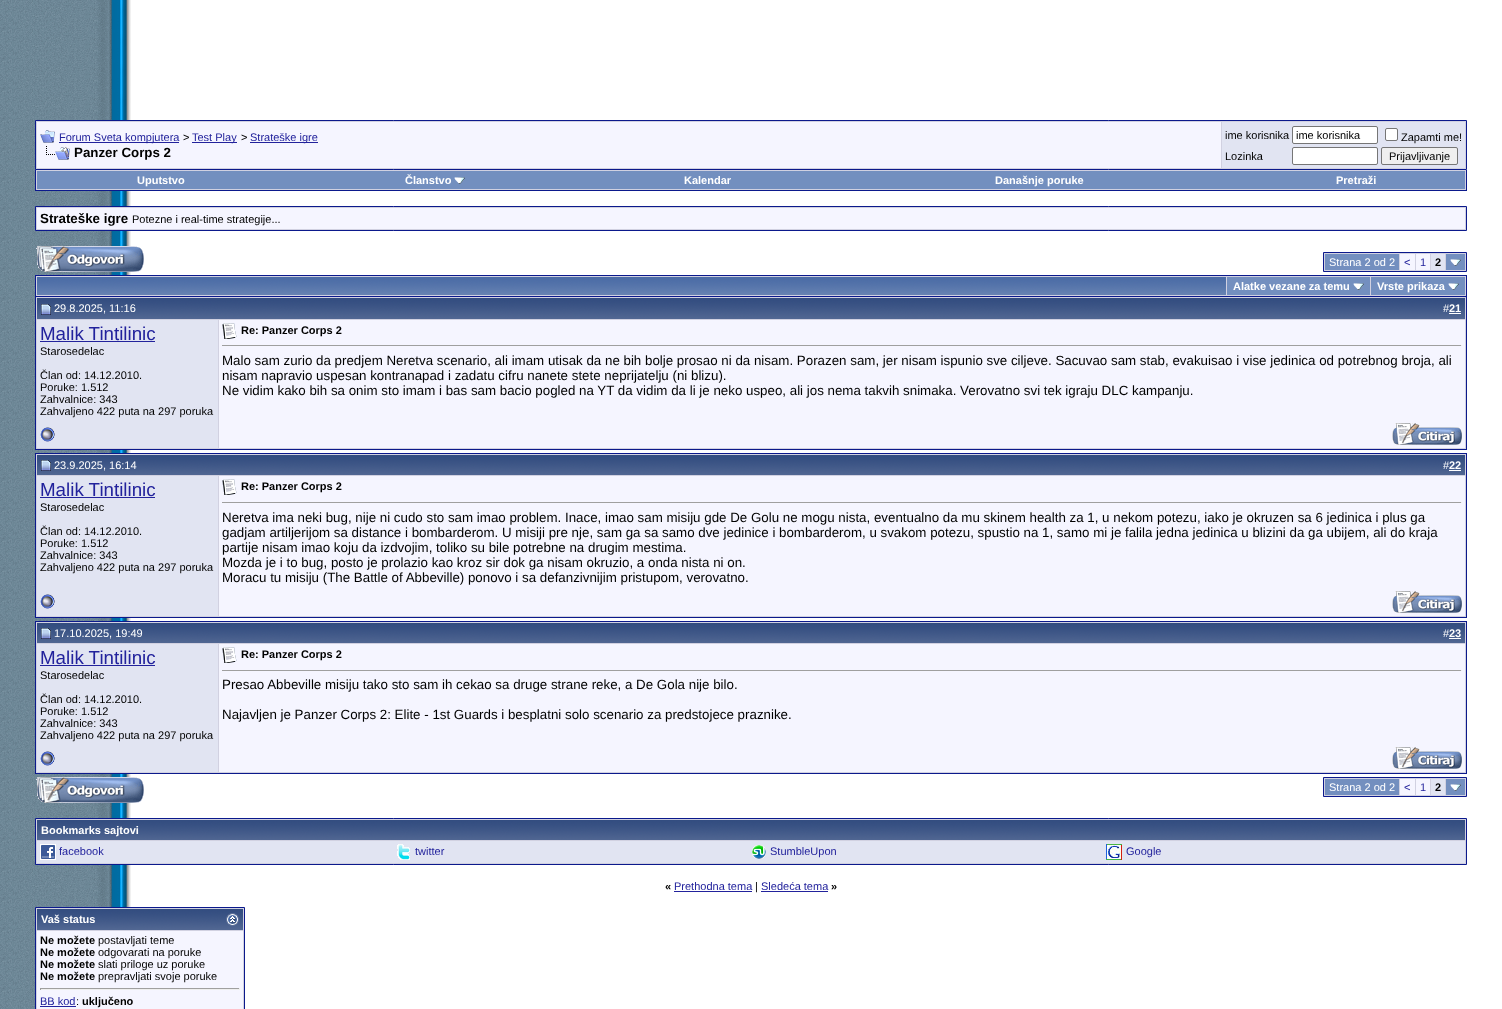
(async () => {
  const canvas = document.querySelector("canvas");
  canvas.width = 1502;
  canvas.height = 1009;
  const ctx = canvas.getContext("2d");
  ctx.miterLimit = 4;
  ctx.fontKerning = "normal";
  async function loadImage(src) {
    const img = new Image();
    img.src = src;
    await img.decode();
    return img;
  }

  ctx.fillStyle = "#ffffff";
  ctx.fillRect(0, 0, 1502, 1009);
  ctx.drawImage(await loadImage("img/1.png"), 0, 0, 131, 1009);
  ctx.fillStyle = "#d1d1e1";
  ctx.beginPath();
  ctx.rect(35.5, 120.5, 1431, 49);
  ctx.fill();
  ctx.strokeStyle = "#0b198c";
  ctx.stroke();
  ctx.fillStyle = "#f5f5ff";
  ctx.fillRect(37, 122, 1184, 46);
  ctx.drawImage(await loadImage("img/2.png"), 40, 130, 15, 13);
  for (const [x, y, w, h, color] of [
    [59, 142, 120, 1, "#22229c"],
    [192, 142, 45, 1, "#22229c"],
    [250, 142, 68, 1, "#22229c"],
  ]) {
    ctx.fillStyle = color;
    ctx.fillRect(x, y, w, h);
  }
  ctx.drawImage(await loadImage("img/3.png"), 46, 146, 24, 14);
  ctx.fillStyle = "#e1e4f2";
  ctx.fillRect(1222, 122, 243, 46);
  ctx.fillStyle = "#ffffff";
  ctx.beginPath();
  ctx.roundRect(1292.5, 126.5, 85, 17, 1.5);
  ctx.fill();
  ctx.strokeStyle = "#767676";
  ctx.stroke();
  ctx.beginPath();
  ctx.roundRect(1385.5, 128.5, 12, 12, 1.5);
  ctx.fill();
  ctx.stroke();
  ctx.beginPath();
  ctx.roundRect(1292.5, 147.5, 85, 17, 1.5);
  ctx.fill();
  ctx.stroke();
  ctx.fillStyle = "#efefef";
  ctx.beginPath();
  ctx.roundRect(1381.5, 147.5, 76, 17, 1.5);
  ctx.fill();
  ctx.stroke();
  for (const [x, y, w, h, color] of [
    [36, 170, 1430, 20, "#d1d1e1"],
    [1466, 170, 1, 21, "#0b198c"],
    [35, 190, 1432, 1, "#0b198c"],
    [35, 170, 1, 21, "#0b198c"],
    [37, 171, 1428, 18, "#738fbf"],
  ]) {
    ctx.fillStyle = color;
    ctx.fillRect(x, y, w, h);
  }
  ctx.drawImage(await loadImage("img/4.png"), 454, 177, 11, 7);
  ctx.fillStyle = "#d1d1e1";
  ctx.beginPath();
  ctx.rect(35.5, 206.5, 1431, 24);
  ctx.fill();
  ctx.strokeStyle = "#0b198c";
  ctx.stroke();
  ctx.fillStyle = "#f5f5ff";
  ctx.fillRect(37, 208, 1428, 21);
  ctx.drawImage(await loadImage("img/5.png"), 36, 246, 108, 26);
  ctx.fillStyle = "#d1d1e1";
  ctx.beginPath();
  ctx.rect(1323.5, 252.5, 143, 19);
  ctx.fill();
  ctx.stroke();
  for (const [x, y, w, h, color] of [
    [1325, 254, 74, 16, "#738fbf"],
    [1400, 254, 15, 16, "#f5f5ff"],
    [1416, 254, 14, 16, "#f5f5ff"],
    [1431, 254, 14, 16, "#e1e4f2"],
    [1446, 254, 19, 16, "#738fbf"],
  ]) {
    ctx.fillStyle = color;
    ctx.fillRect(x, y, w, h);
  }
  ctx.drawImage(await loadImage("img/4.png"), 1450, 259, 11, 7);
  for (const [x, y, w, h, color] of [
    [36, 276, 1430, 20, "#d1d1e1"],
    [35, 275, 1432, 1, "#0b198c"],
    [1466, 275, 1, 21, "#0b198c"],
    [35, 275, 1, 21, "#0b198c"],
  ]) {
    ctx.fillStyle = color;
    ctx.fillRect(x, y, w, h);
  }
  ctx.drawImage(await loadImage("img/6.png"), 37, 277, 1189, 18);
  ctx.fillStyle = "#738fbf";
  ctx.fillRect(1227, 277, 143, 18);
  ctx.drawImage(await loadImage("img/4.png"), 1353, 283, 11, 7);
  ctx.fillRect(1371, 277, 94, 18);
  ctx.drawImage(await loadImage("img/4.png"), 1448, 283, 11, 7);
  ctx.strokeRect(35.5, 296.5, 1431, 153);
  ctx.drawImage(await loadImage("img/7.png"), 37, 298, 182, 21);
  for (const [x, y, w, h, color] of [
    [36, 297, 1430, 1, "#d1d1e1"],
    [36, 319, 183, 1, "#d1d1e1"],
    [36, 297, 1, 123, "#d1d1e1"],
  ]) {
    ctx.fillStyle = color;
    ctx.fillRect(x, y, w, h);
  }
  ctx.drawImage(await loadImage("img/8.png"), 41, 304, 10, 11);
  ctx.drawImage(await loadImage("img/9.png"), 219, 298, 1246, 21);
  for (const [x, y, w, h, color] of [
    [1465, 297, 1, 152, "#d1d1e1"],
    [219, 319, 1247, 1, "#d1d1e1"],
    [1449, 313, 12, 1, "#ffffff"],
    [37, 320, 181, 128, "#e1e4f2"],
    [218, 320, 1, 129, "#d1d1e1"],
    [40, 341, 115, 1, "#22229c"],
    [219, 320, 1246, 128, "#f5f5ff"],
  ]) {
    ctx.fillStyle = color;
    ctx.fillRect(x, y, w, h);
  }
  ctx.drawImage(await loadImage("img/10.png"), 222, 323, 15, 16);
  for (const [x, y, w, h, color] of [
    [222, 345, 1240, 1, "#9f9f9f"],
    [1461, 345, 1, 1, "#eeeeee"],
    [36, 448, 1430, 1, "#d1d1e1"],
    [36, 420, 1, 29, "#d1d1e1"],
  ]) {
    ctx.fillStyle = color;
    ctx.fillRect(x, y, w, h);
  }
  ctx.drawImage(await loadImage("img/11.png"), 40, 427, 15, 15);
  ctx.drawImage(await loadImage("img/12.png"), 1392, 423, 70, 22);
  ctx.strokeRect(35.5, 453.5, 1431, 164);
  ctx.drawImage(await loadImage("img/13.png"), 37, 455, 182, 20);
  for (const [x, y, w, h, color] of [
    [36, 454, 1430, 1, "#d1d1e1"],
    [36, 475, 183, 1, "#d1d1e1"],
    [36, 454, 1, 134, "#d1d1e1"],
  ]) {
    ctx.fillStyle = color;
    ctx.fillRect(x, y, w, h);
  }
  ctx.drawImage(await loadImage("img/14.png"), 41, 460, 10, 11);
  ctx.drawImage(await loadImage("img/15.png"), 219, 455, 1246, 20);
  for (const [x, y, w, h, color] of [
    [1465, 454, 1, 163, "#d1d1e1"],
    [219, 475, 1247, 1, "#d1d1e1"],
    [1449, 470, 12, 1, "#ffffff"],
    [37, 476, 181, 140, "#e1e4f2"],
    [218, 476, 1, 141, "#d1d1e1"],
    [40, 497, 115, 1, "#22229c"],
    [219, 476, 1246, 140, "#f5f5ff"],
  ]) {
    ctx.fillStyle = color;
    ctx.fillRect(x, y, w, h);
  }
  ctx.drawImage(await loadImage("img/10.png"), 222, 479, 15, 16);
  for (const [x, y, w, h, color] of [
    [222, 502, 1240, 1, "#9f9f9f"],
    [1461, 502, 1, 1, "#eeeeee"],
    [36, 616, 1430, 1, "#d1d1e1"],
    [36, 588, 1, 29, "#d1d1e1"],
  ]) {
    ctx.fillStyle = color;
    ctx.fillRect(x, y, w, h);
  }
  ctx.drawImage(await loadImage("img/11.png"), 40, 594, 15, 15);
  ctx.drawImage(await loadImage("img/12.png"), 1392, 591, 70, 22);
  ctx.strokeRect(35.5, 621.5, 1431, 152);
  ctx.drawImage(await loadImage("img/13.png"), 37, 623, 182, 20);
  for (const [x, y, w, h, color] of [
    [36, 622, 1430, 1, "#d1d1e1"],
    [36, 643, 183, 1, "#d1d1e1"],
    [36, 622, 1, 122, "#d1d1e1"],
  ]) {
    ctx.fillStyle = color;
    ctx.fillRect(x, y, w, h);
  }
  ctx.drawImage(await loadImage("img/14.png"), 41, 628, 10, 11);
  ctx.drawImage(await loadImage("img/15.png"), 219, 623, 1246, 20);
  for (const [x, y, w, h, color] of [
    [1465, 622, 1, 151, "#d1d1e1"],
    [219, 643, 1247, 1, "#d1d1e1"],
    [1449, 638, 12, 1, "#ffffff"],
    [37, 644, 181, 128, "#e1e4f2"],
    [218, 644, 1, 129, "#d1d1e1"],
    [40, 665, 115, 1, "#22229c"],
    [219, 644, 1246, 128, "#f5f5ff"],
  ]) {
    ctx.fillStyle = color;
    ctx.fillRect(x, y, w, h);
  }
  ctx.drawImage(await loadImage("img/10.png"), 222, 647, 15, 16);
  for (const [x, y, w, h, color] of [
    [222, 670, 1240, 1, "#9f9f9f"],
    [1461, 670, 1, 1, "#eeeeee"],
    [36, 772, 1430, 1, "#d1d1e1"],
    [36, 744, 1, 29, "#d1d1e1"],
  ]) {
    ctx.fillStyle = color;
    ctx.fillRect(x, y, w, h);
  }
  ctx.drawImage(await loadImage("img/11.png"), 40, 751, 15, 15);
  ctx.drawImage(await loadImage("img/12.png"), 1392, 747, 70, 22);
  ctx.drawImage(await loadImage("img/16.png"), 36, 777, 108, 26);
  ctx.beginPath();
  ctx.rect(1323.5, 777.5, 143, 19);
  ctx.fill();
  ctx.stroke();
  for (const [x, y, w, h, color] of [
    [1325, 779, 74, 16, "#738fbf"],
    [1400, 779, 15, 16, "#f5f5ff"],
    [1416, 779, 14, 16, "#f5f5ff"],
    [1431, 779, 14, 16, "#e1e4f2"],
    [1446, 779, 19, 16, "#738fbf"],
  ]) {
    ctx.fillStyle = color;
    ctx.fillRect(x, y, w, h);
  }
  ctx.drawImage(await loadImage("img/4.png"), 1450, 784, 11, 7);
  ctx.fillStyle = "#d1d1e1";
  ctx.beginPath();
  ctx.rect(35.5, 818.5, 1431, 46);
  ctx.fill();
  ctx.stroke();
  ctx.drawImage(await loadImage("img/17.png"), 37, 820, 1428, 20);
  ctx.fillStyle = "#e1e4f2";
  ctx.fillRect(37, 841, 1428, 22);
  ctx.drawImage(await loadImage("img/18.png"), 40, 844, 16, 16);
  ctx.drawImage(await loadImage("img/19.png"), 397, 844, 13, 16);
  ctx.drawImage(await loadImage("img/20.png"), 752, 845, 14, 14);
  ctx.drawImage(await loadImage("img/21.png"), 1106, 844, 16, 16);
  ctx.fillStyle = "#22229c";
  ctx.fillRect(674, 891, 78, 1);
  ctx.fillRect(761, 891, 67, 1);
  ctx.fillStyle = "#d1d1e1";
  ctx.beginPath();
  ctx.rect(35.5, 907.5, 209, 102);
  ctx.fill();
  ctx.stroke();
  ctx.drawImage(await loadImage("img/22.png"), 37, 909, 206, 21);
  ctx.drawImage(await loadImage("img/23.png"), 226, 913, 13, 13);
  for (const [x, y, w, h, color] of [
    [37, 931, 206, 78, "#f5f5ff"],
    [40, 988, 200, 1, "#9f9f9f"],
    [239, 988, 1, 2, "#eeeeee"],
    [40, 989, 200, 1, "#eeeeee"],
    [40, 988, 1, 2, "#9f9f9f"],
    [40, 1006, 36, 1, "#22229c"],
  ]) {
    ctx.fillStyle = color;
    ctx.fillRect(x, y, w, h);
  }
  ctx.font = "11px Liberation Sans";
  ctx.fillText("Forum Sveta kompjutera", 59, 141);
  ctx.fillStyle = "#000000";
  ctx.fillText(">", 183, 141);
  ctx.fillStyle = "#22229c";
  ctx.fillText("Test Play", 192, 141);
  ctx.fillStyle = "#000000";
  ctx.fillText(">", 241, 141);
  ctx.fillStyle = "#22229c";
  ctx.fillText("Strateške igre", 250, 141);
  ctx.font = "bold 13.33px Liberation Sans";
  ctx.fillStyle = "#000000";
  ctx.fillText("Panzer Corps 2", 74, 157);
  ctx.font = "11px Liberation Sans";
  for (const [text, x, y] of [
    ["ime korisnika", 1225, 139],
    ["ime korisnika", 1296, 139],
    ["Zapamti me!", 1401, 141],
    ["Lozinka", 1225, 160],
    ["Prijavljivanje", 1389, 160],
  ]) {
    ctx.fillText(text, x, y);
  }
  ctx.font = "bold 11px Liberation Sans";
  ctx.fillStyle = "#ffffff";
  for (const [text, x, y] of [
    ["Uputstvo", 137, 184],
    ["Članstvo", 405, 184],
    ["Kalendar", 684, 184],
    ["Današnje poruke", 995, 184],
    ["Pretraži", 1336, 184],
  ]) {
    ctx.fillText(text, x, y);
  }
  ctx.font = "bold 13.33px Liberation Sans";
  ctx.fillStyle = "#000000";
  ctx.fillText("Strateške igre", 40, 223);
  ctx.font = "11px Liberation Sans";
  ctx.fillText("Potezne i real-time strategije...", 132, 223);
  ctx.fillStyle = "#ffffff";
  ctx.fillText("Strana 2 od 2", 1329, 266);
  ctx.fillStyle = "#22229c";
  ctx.fillText("<", 1404, 266);
  ctx.fillText("1", 1420, 266);
  ctx.font = "bold 11px Liberation Sans";
  ctx.fillStyle = "#000000";
  ctx.fillText("2", 1435, 266);
  ctx.fillStyle = "#ffffff";
  ctx.fillText("Alatke vezane za temu", 1233, 290);
  ctx.fillText("Vrste prikaza", 1377, 290);
  ctx.font = "11px Liberation Sans";
  ctx.fillText("29.8.2025, 11:16", 54, 312);
  ctx.fillText("#", 1443, 312);
  ctx.font = "bold 11px Liberation Sans";
  ctx.fillText("21", 1449, 312);
  ctx.font = "18.75px Liberation Sans";
  ctx.fillStyle = "#22229c";
  ctx.fillText("Malik Tintilinic", 40, 340);
  ctx.font = "11px Liberation Sans";
  ctx.fillStyle = "#000000";
  for (const [text, x, y] of [
    ["Starosedelac", 40, 355],
    ["Član od: 14.12.2010.", 40, 379],
    ["Poruke: 1.512", 40, 391],
    ["Zahvalnice: 343", 40, 403],
    ["Zahvaljeno 422 puta na 297 poruka", 40, 415],
  ]) {
    ctx.fillText(text, x, y);
  }
  ctx.font = "bold 11px Liberation Sans";
  ctx.fillText("Re: Panzer Corps 2", 241, 334);
  ctx.font = "13.33px Liberation Sans";
  for (const [text, x, y] of [
    ["Malo sam zurio da predjem Neretva scenario, ali imam utisak da ne bih bolje prosao ni da nisam. Porazen sam, jer nisam ispunio sve ciljeve. Sacuvao sam stab, evakuisao i vise jedinica od potrebnog broja, ali", 222, 365],
    ["nisam napravio uspesan kontranapad i zadatu cifru nanete stete neprijatelju (ni blizu).", 222, 380],
    ["Ne vidim kako bih sa onim sto imam i bas sam bacio pogled na YT da vidim da li je neko uspeo, ali jos nema takvih snimaka. Verovatno svi tek igraju DLC kampanju.", 222, 395],
  ]) {
    ctx.fillText(text, x, y);
  }
  ctx.font = "11px Liberation Sans";
  ctx.fillStyle = "#ffffff";
  ctx.fillText("23.9.2025, 16:14", 54, 469);
  ctx.fillText("#", 1443, 469);
  ctx.font = "bold 11px Liberation Sans";
  ctx.fillText("22", 1449, 469);
  ctx.font = "18.75px Liberation Sans";
  ctx.fillStyle = "#22229c";
  ctx.fillText("Malik Tintilinic", 40, 496);
  ctx.font = "11px Liberation Sans";
  ctx.fillStyle = "#000000";
  for (const [text, x, y] of [
    ["Starosedelac", 40, 511],
    ["Član od: 14.12.2010.", 40, 535],
    ["Poruke: 1.512", 40, 547],
    ["Zahvalnice: 343", 40, 559],
    ["Zahvaljeno 422 puta na 297 poruka", 40, 571],
  ]) {
    ctx.fillText(text, x, y);
  }
  ctx.font = "bold 11px Liberation Sans";
  ctx.fillText("Re: Panzer Corps 2", 241, 490);
  ctx.font = "13.33px Liberation Sans";
  for (const [text, x, y] of [
    ["Neretva ima neki bug, nije ni cudo sto sam imao problem. Inace, imao sam misiju gde De Golu ne mogu nista, eventualno da mu skinem health za 1, u nekom potezu, iako je okruzen sa 6 jedinica i plus ga", 222, 522],
    ["gadjam artiljerijom sa distance i bombarderom. U misiji pre nje, sam ga sa samo dve jedinice i bombarderom, u svakom potezu, spustio na 1, samo mi je falila jedna jedinica u blizini da ga ubijem, ali do kraja", 222, 537],
    ["partije nisam imao koju da izdvojim, toliko su bile potrebne na drugim mestima.", 222, 552],
    ["Mozda je i to bug, posto je prolazio kao kroz sir dok ga nisam okruzio, a onda nista ni on.", 222, 567],
    ["Moracu tu misiju (The Battle of Abbeville) ponovo i sa defanzivnijim pristupom, verovatno.", 222, 582],
  ]) {
    ctx.fillText(text, x, y);
  }
  ctx.font = "11px Liberation Sans";
  ctx.fillStyle = "#ffffff";
  ctx.fillText("17.10.2025, 19:49", 54, 637);
  ctx.fillText("#", 1443, 637);
  ctx.font = "bold 11px Liberation Sans";
  ctx.fillText("23", 1449, 637);
  ctx.font = "18.75px Liberation Sans";
  ctx.fillStyle = "#22229c";
  ctx.fillText("Malik Tintilinic", 40, 664);
  ctx.font = "11px Liberation Sans";
  ctx.fillStyle = "#000000";
  for (const [text, x, y] of [
    ["Starosedelac", 40, 679],
    ["Član od: 14.12.2010.", 40, 703],
    ["Poruke: 1.512", 40, 715],
    ["Zahvalnice: 343", 40, 727],
    ["Zahvaljeno 422 puta na 297 poruka", 40, 739],
  ]) {
    ctx.fillText(text, x, y);
  }
  ctx.font = "bold 11px Liberation Sans";
  ctx.fillText("Re: Panzer Corps 2", 241, 658);
  ctx.font = "13.33px Liberation Sans";
  ctx.fillText("Presao Abbeville misiju tako sto sam ih cekao sa druge strane reke, a De Gola nije bilo.", 222, 689);
  ctx.fillText("Najavljen je Panzer Corps 2: Elite - 1st Guards i besplatni solo scenario za predstojece praznike.", 222, 719);
  ctx.font = "11px Liberation Sans";
  ctx.fillStyle = "#ffffff";
  ctx.fillText("Strana 2 od 2", 1329, 791);
  ctx.fillStyle = "#22229c";
  ctx.fillText("<", 1404, 791);
  ctx.fillText("1", 1420, 791);
  ctx.font = "bold 11px Liberation Sans";
  ctx.fillStyle = "#000000";
  ctx.fillText("2", 1435, 791);
  ctx.fillStyle = "#ffffff";
  ctx.fillText("Bookmarks sajtovi", 41, 834);
  ctx.font = "11px Liberation Sans";
  ctx.fillStyle = "#22229c";
  for (const [text, x, y] of [
    ["facebook", 59, 855],
    ["twitter", 415, 855],
    ["StumbleUpon", 770, 855],
    ["Google", 1126, 855],
  ]) {
    ctx.fillText(text, x, y);
  }
  ctx.font = "bold 11px Liberation Sans";
  ctx.fillStyle = "#000000";
  ctx.fillText("«", 665, 890);
  ctx.font = "11px Liberation Sans";
  ctx.fillStyle = "#22229c";
  ctx.fillText("Prethodna tema", 674, 890);
  ctx.fillStyle = "#000000";
  ctx.fillText("|", 755, 890);
  ctx.fillStyle = "#22229c";
  ctx.fillText("Sledeća tema", 761, 890);
  ctx.font = "bold 11px Liberation Sans";
  ctx.fillStyle = "#000000";
  ctx.fillText("»", 831, 890);
  ctx.fillStyle = "#ffffff";
  ctx.fillText("Vaš status", 41, 923);
  ctx.fillStyle = "#000000";
  ctx.fillText("Ne možete", 40, 944);
  ctx.font = "11px Liberation Sans";
  ctx.fillText("postavljati teme", 98, 944);
  ctx.font = "bold 11px Liberation Sans";
  ctx.fillText("Ne možete", 40, 956);
  ctx.font = "11px Liberation Sans";
  ctx.fillText("odgovarati na poruke", 98, 956);
  ctx.font = "bold 11px Liberation Sans";
  ctx.fillText("Ne možete", 40, 968);
  ctx.font = "11px Liberation Sans";
  ctx.fillText("slati priloge uz poruke", 98, 968);
  ctx.font = "bold 11px Liberation Sans";
  ctx.fillText("Ne možete", 40, 980);
  ctx.font = "11px Liberation Sans";
  ctx.fillText("prepravljati svoje poruke", 98, 980);
  ctx.fillStyle = "#22229c";
  ctx.fillText("BB kod", 40, 1005);
  ctx.fillStyle = "#000000";
  ctx.fillText(":", 76, 1005);
  ctx.font = "bold 11px Liberation Sans";
  ctx.fillText("uključeno", 82, 1005);
})();
